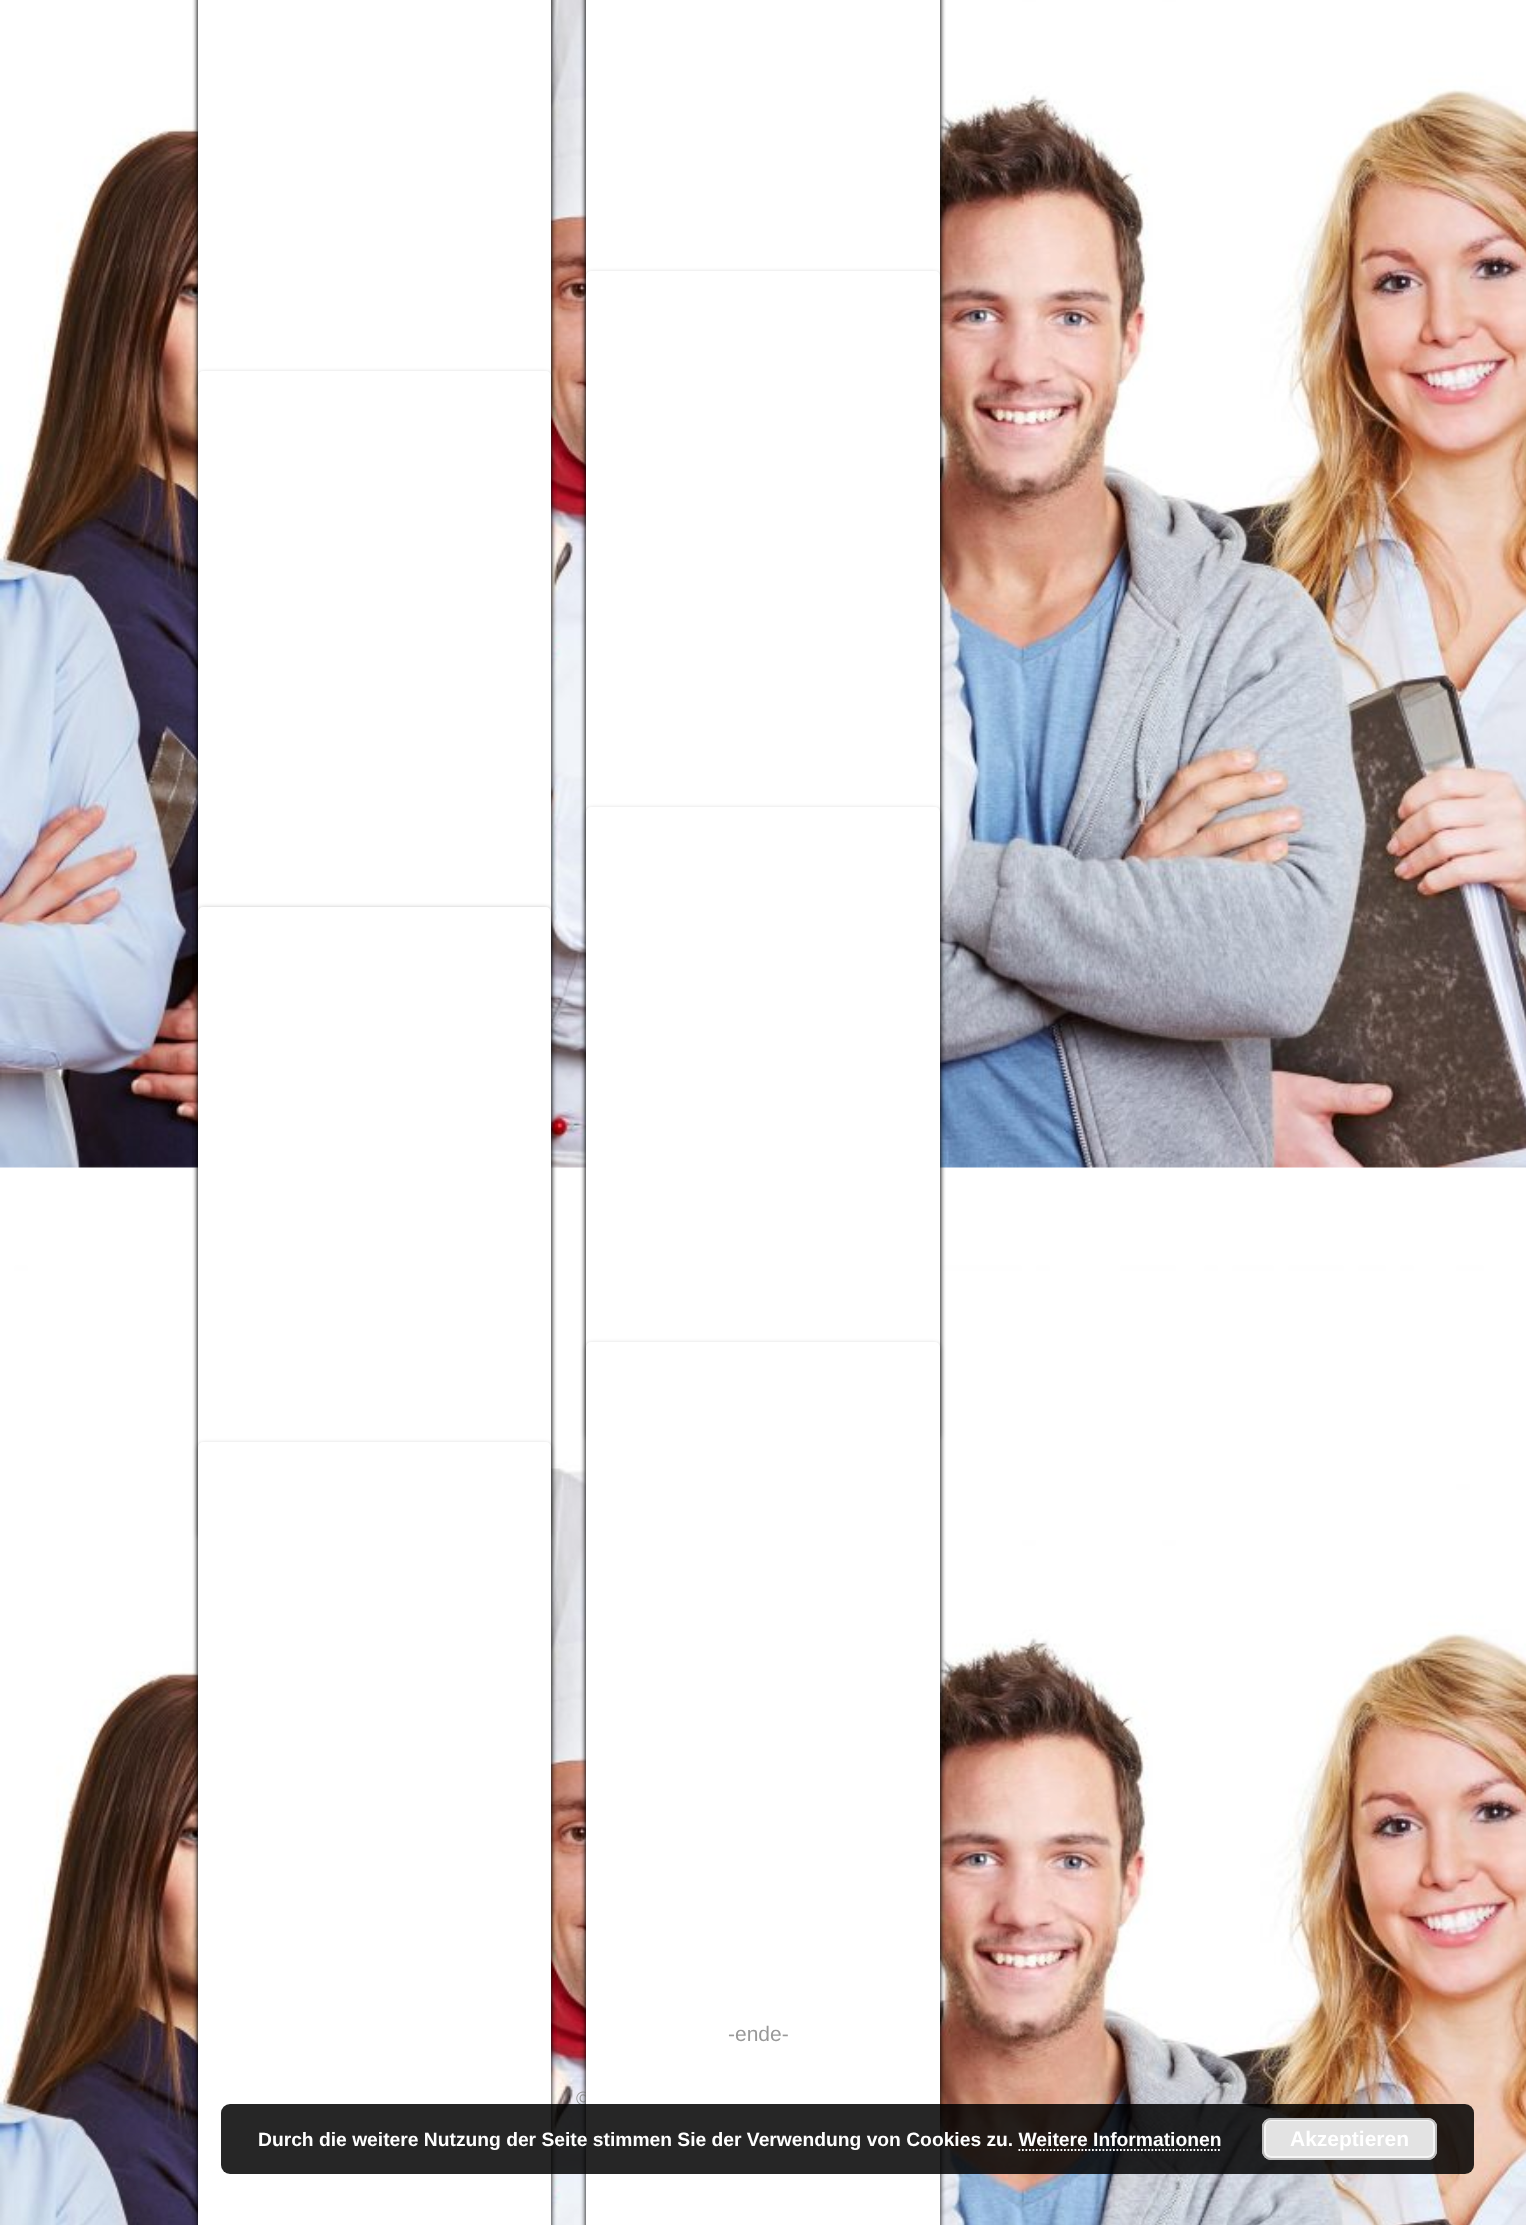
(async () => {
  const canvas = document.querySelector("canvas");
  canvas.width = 1526;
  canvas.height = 2225;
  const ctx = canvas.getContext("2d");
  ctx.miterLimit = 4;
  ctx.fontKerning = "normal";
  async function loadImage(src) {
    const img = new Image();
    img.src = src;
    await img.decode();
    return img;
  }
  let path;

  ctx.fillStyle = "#ffffff";
  ctx.fillRect(0, 0, 1526, 2225);
  ctx.drawImage(await loadImage("img/1.png"), 0, 0, 1526, 2225);
  ctx.fillStyle = "rgba(0, 0, 0, 0.33)";
  ctx.filter = "blur(2.5px)";
  ctx.beginPath();
  ctx.roundRect(198, -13, 353, 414, 5);
  ctx.fill();
  ctx.filter = "none";
  ctx.filter = "blur(2.5px)";
  ctx.beginPath();
  ctx.roundRect(198, -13, 353, 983, 5);
  ctx.fill();
  ctx.filter = "none";
  ctx.filter = "blur(2.5px)";
  ctx.beginPath();
  ctx.roundRect(198, -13, 353, 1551, 5);
  ctx.fill();
  ctx.filter = "none";
  ctx.filter = "blur(2.5px)";
  ctx.beginPath();
  ctx.roundRect(198, -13, 353, 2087, 5);
  ctx.fill();
  ctx.filter = "none";
  ctx.filter = "blur(2.5px)";
  ctx.beginPath();
  ctx.roundRect(198, -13, 353, 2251, 5);
  ctx.fill();
  ctx.filter = "none";
  ctx.fillStyle = "#ffffff";
  ctx.fillRect(198, 0, 353, 376);
  ctx.fillStyle = "rgba(0, 0, 0, 0.33)";
  ctx.filter = "blur(2.5px)";
  ctx.beginPath();
  ctx.roundRect(586, -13, 354, 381, 5);
  ctx.fill();
  ctx.filter = "none";
  ctx.filter = "blur(2.5px)";
  ctx.beginPath();
  ctx.roundRect(586, -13, 354, 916, 5);
  ctx.fill();
  ctx.filter = "none";
  ctx.filter = "blur(2.5px)";
  ctx.beginPath();
  ctx.roundRect(586, -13, 354, 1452, 5);
  ctx.fill();
  ctx.filter = "none";
  ctx.filter = "blur(2.5px)";
  ctx.beginPath();
  ctx.roundRect(586, -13, 354, 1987, 5);
  ctx.fill();
  ctx.filter = "none";
  path = new Path2D("M565 2143H724.5");
  ctx.strokeStyle = "#cccccc";
  ctx.lineWidth = 1.8;
  ctx.setLineDash([1.75, 1.75]);
  ctx.stroke(path);
  path = new Path2D("M840 2143H961");
  ctx.stroke(path);
  ctx.filter = "blur(2.5px)";
  ctx.beginPath();
  ctx.roundRect(586, -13, 354, 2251, 5);
  ctx.fill();
  ctx.filter = "none";
  ctx.fillStyle = "#ffffff";
  ctx.fillRect(586, 0, 354, 276);
  ctx.fillStyle = "rgba(0, 0, 0, 0.33)";
  ctx.filter = "blur(2.5px)";
  ctx.beginPath();
  ctx.roundRect(198, 373, 353, 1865, 5);
  ctx.fill();
  ctx.filter = "none";
  ctx.fillStyle = "#ffffff";
  ctx.beginPath();
  ctx.roundRect(198, 371, 353, 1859, 5);
  ctx.fill();
  ctx.fillStyle = "rgba(0, 0, 0, 0.33)";
  ctx.filter = "blur(2.5px)";
  ctx.beginPath();
  ctx.roundRect(586, 273, 354, 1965, 5);
  ctx.fill();
  ctx.filter = "none";
  ctx.filter = "blur(2.5px)";
  ctx.beginPath();
  ctx.roundRect(198, 908, 353, 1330, 5);
  ctx.fill();
  ctx.filter = "none";
  ctx.fillStyle = "#ffffff";
  ctx.beginPath();
  ctx.roundRect(198, 907, 353, 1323, 5);
  ctx.fill();
  ctx.fillStyle = "rgba(0, 0, 0, 0.33)";
  ctx.filter = "blur(2.5px)";
  ctx.beginPath();
  ctx.roundRect(198, 1444, 353, 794, 5);
  ctx.fill();
  ctx.filter = "none";
  ctx.fillStyle = "#ffffff";
  ctx.beginPath();
  ctx.roundRect(198, 1442, 353, 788, 5);
  ctx.fill();
  ctx.font = "19.25px Liberation Sans";
  ctx.fillStyle = "#999999";
  ctx.fillText("©", 576, 2105);
  ctx.fillStyle = "#ffffff";
  ctx.beginPath();
  ctx.roundRect(586, 271, 354, 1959, 5);
  ctx.fill();
  ctx.fillStyle = "rgba(0, 0, 0, 0.33)";
  ctx.filter = "blur(2.5px)";
  ctx.beginPath();
  ctx.roundRect(586, 809, 354, 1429, 5);
  ctx.fill();
  ctx.filter = "none";
  ctx.fillStyle = "#ffffff";
  ctx.beginPath();
  ctx.roundRect(586, 807, 354, 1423, 5);
  ctx.fill();
  ctx.fillStyle = "rgba(0, 0, 0, 0.33)";
  ctx.filter = "blur(2.5px)";
  ctx.beginPath();
  ctx.roundRect(586, 1344, 354, 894, 5);
  ctx.fill();
  ctx.filter = "none";
  ctx.fillStyle = "#ffffff";
  ctx.beginPath();
  ctx.roundRect(586, 1342, 354, 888, 5);
  ctx.fill();
  ctx.font = "21px Liberation Sans";
  ctx.fillStyle = "#999999";
  ctx.fillText("-ende-", 728, 2041);
  ctx.fillStyle = "rgba(0, 0, 0, 0.85)";
  ctx.beginPath();
  ctx.roundRect(221, 2104, 1253, 70, 9);
  ctx.fill();
  ctx.font = "bold 19.25px Liberation Sans";
  ctx.fillStyle = "#ffffff";
  ctx.fillText("Durch die weitere Nutzung der Seite stimmen Sie der Verwendung von Cookies zu. Weitere Informationen", 258, 2146);
  ctx.fillStyle = "#e3e3e3";
  ctx.beginPath();
  ctx.roundRect(1262, 2118, 175, 42, 9);
  ctx.fill();
  ctx.beginPath();
  ctx.roundRect(1265, 2120, 169, 37, 6);
  ctx.strokeStyle = "#f6f6f6";
  ctx.lineWidth = 2;
  ctx.setLineDash([]);
  ctx.stroke();
  ctx.beginPath();
  ctx.roundRect(1263, 2119, 173, 40, 8);
  ctx.strokeStyle = "#bbbbbb";
  ctx.stroke();
  ctx.font = "bold 21px Liberation Sans";
  ctx.fillStyle = "#ffffff";
  ctx.fillText("Akzeptieren", 1290, 2146);
  path = new Path2D("M1018.5 2150H1221.5");
  ctx.strokeStyle = "#ffffff";
  ctx.lineWidth = 1.8;
  ctx.setLineDash([1.75, 1.75]);
  ctx.stroke(path);
})();
